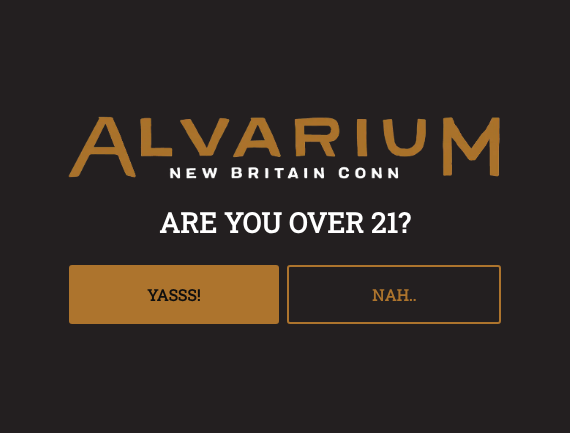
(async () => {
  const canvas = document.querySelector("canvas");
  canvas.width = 570;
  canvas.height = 433;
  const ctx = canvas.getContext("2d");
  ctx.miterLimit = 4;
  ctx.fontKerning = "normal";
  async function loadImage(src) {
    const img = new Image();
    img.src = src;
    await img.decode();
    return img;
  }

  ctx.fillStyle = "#231f20";
  ctx.fillRect(0, 0, 570, 433);
  ctx.drawImage(await loadImage("img/1.png"), 68, 116, 432, 63);
  ctx.fillStyle = "#ad742d";
  ctx.beginPath();
  ctx.roundRect(69, 265, 210, 59, 3);
  ctx.fill();
  ctx.beginPath();
  ctx.roundRect(288, 266, 212, 57, 2);
  ctx.strokeStyle = "#ad742d";
  ctx.lineWidth = 2;
  ctx.stroke();
  ctx.font = "bold 28px Roboto Slab";
  ctx.fillStyle = "#ffffff";
  ctx.fillText("ARE YOU OVER 21?", 159, 233);
  ctx.font = "bold 16px Roboto Slab";
  ctx.fillStyle = "#0f0f0f";
  ctx.fillText("YASSS!", 147, 301);
  ctx.fillStyle = "#ad742d";
  ctx.fillText("NAH..", 372, 301);
})();
